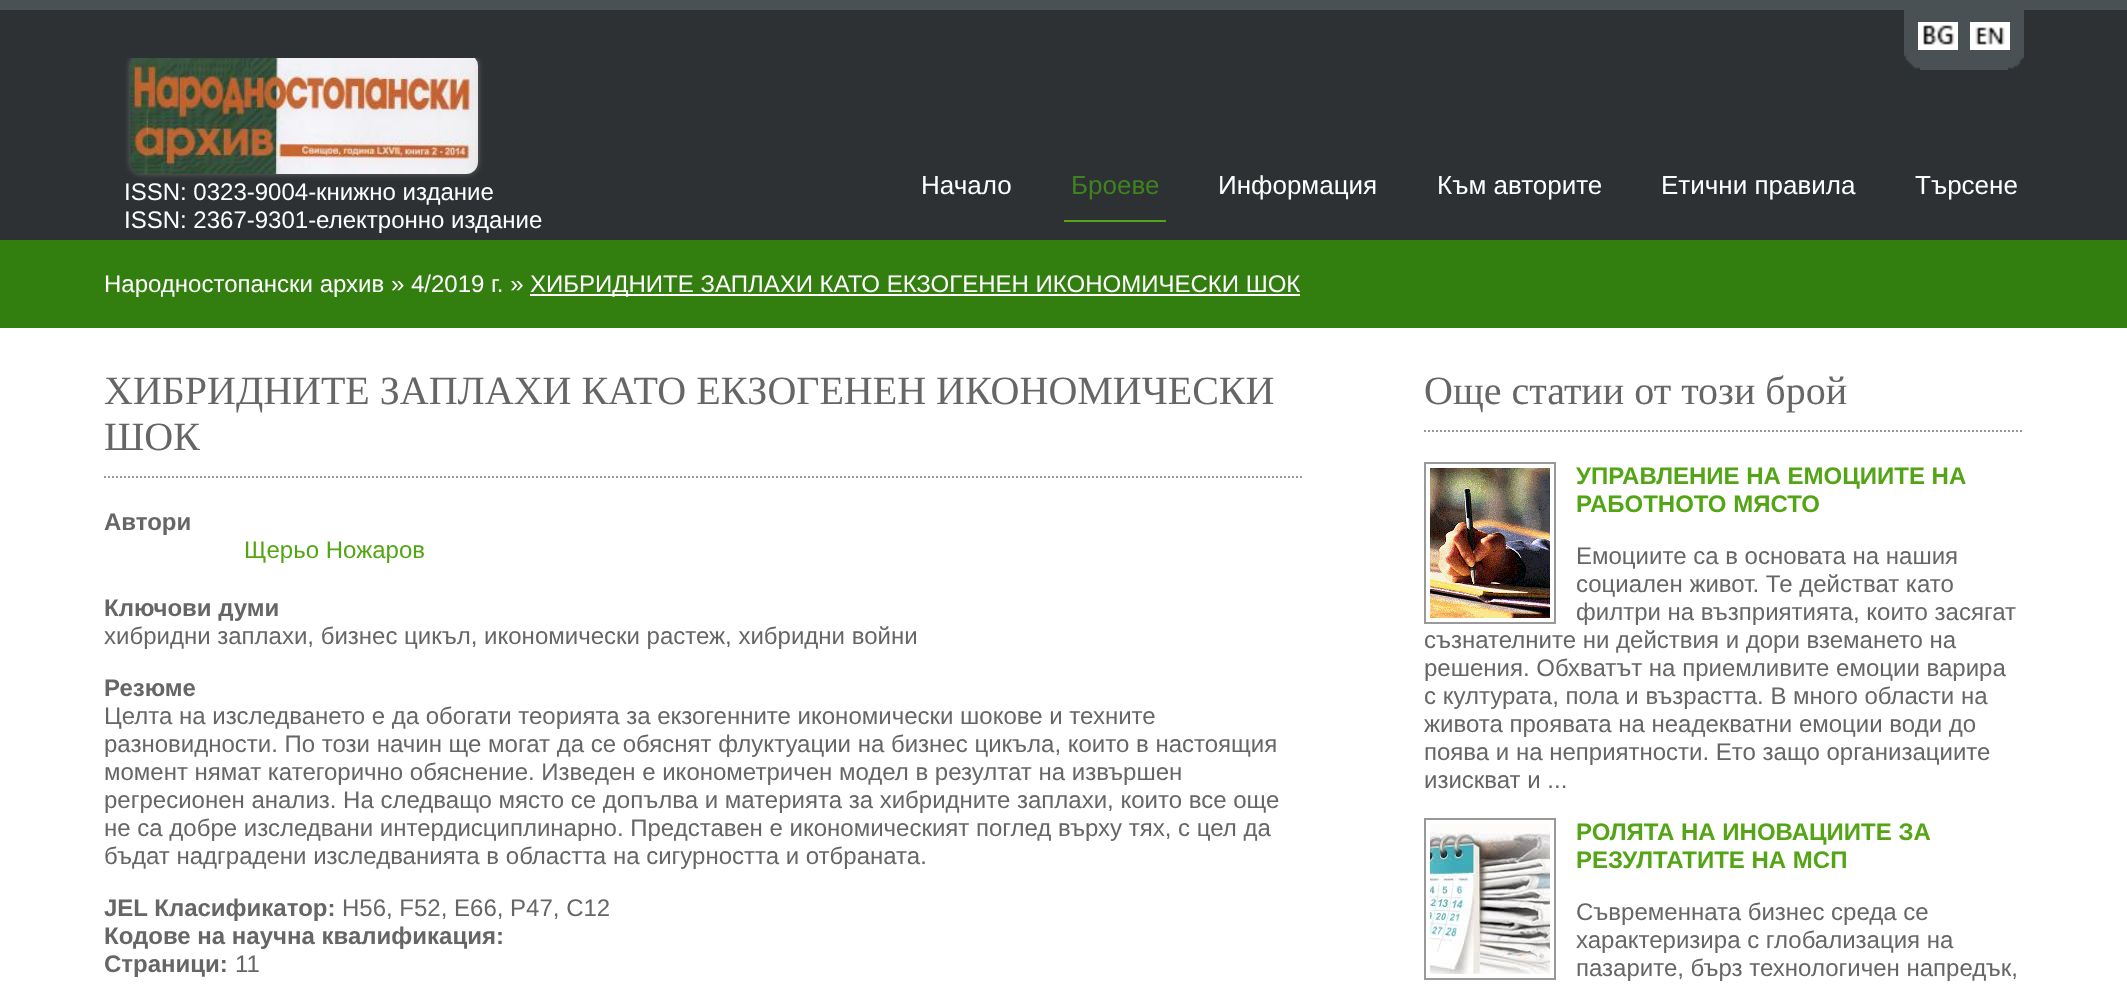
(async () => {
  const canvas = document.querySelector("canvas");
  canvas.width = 2127;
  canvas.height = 984;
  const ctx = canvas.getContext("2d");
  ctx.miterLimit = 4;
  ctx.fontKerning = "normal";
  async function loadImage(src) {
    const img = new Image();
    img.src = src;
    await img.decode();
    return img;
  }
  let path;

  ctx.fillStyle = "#ffffff";
  ctx.fillRect(0, 0, 2127, 984);
  for (const [x, y, w, h, color] of [
    [0, 10, 2127, 230, "#2d3134"],
    [0, 0, 2127, 10, "#4a5155"],
    [1904, 10, 120, 60, "#4a5155"],
  ]) {
    ctx.fillStyle = color;
    ctx.fillRect(x, y, w, h);
  }
  ctx.drawImage(await loadImage("img/1.png"), 1904, 55, 16, 15);
  ctx.drawImage(await loadImage("img/2.png"), 1918, 22, 40, 28);
  ctx.drawImage(await loadImage("img/3.png"), 2008, 57, 16, 13);
  ctx.drawImage(await loadImage("img/4.png"), 1970, 22, 40, 28);
  ctx.save();
  ctx.beginPath();
  ctx.rect(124, 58, 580, 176);
  ctx.clip();
  ctx.fillStyle = "#666666";
  ctx.filter = "blur(3px)";
  ctx.beginPath();
  ctx.roundRect(130, 54, 348, 120, 12);
  ctx.fill();
  ctx.filter = "none";
  ctx.restore();
  ctx.drawImage(await loadImage("img/5.png"), 130, 58, 348, 116);
  for (const [x, y, w, h, color] of [
    [1064, 220, 102, 2, "#54a515"],
    [0, 240, 2127, 88, "#327e0e"],
    [530, 294, 770, 2, "#ffffff"],
  ]) {
    ctx.fillStyle = color;
    ctx.fillRect(x, y, w, h);
  }
  path = new Path2D("M104 477H1304");
  ctx.strokeStyle = "#999999";
  ctx.lineWidth = 2;
  ctx.setLineDash([2, 2]);
  ctx.stroke(path);
  path = new Path2D("M1424 431H2024");
  ctx.stroke(path);
  ctx.setLineDash([]);
  ctx.strokeRect(1425, 463, 130, 160);
  ctx.drawImage(await loadImage("img/6.png"), 1430, 468, 120, 150);
  ctx.strokeRect(1425, 819, 130, 160);
  ctx.drawImage(await loadImage("img/7.png"), 1430, 824, 120, 150);
  ctx.font = "24px Liberation Sans";
  ctx.fillText("ISSN: 0323-9004-книжно издание", 124, 200);
  ctx.fillText("ISSN: 2367-9301-електронно издание", 124, 228);
  ctx.font = "26px Liberation Sans";
  ctx.fillText("Начало", 921, 194);
  ctx.fillStyle = "#3f831f";
  ctx.fillText("Броеве", 1071, 194);
  ctx.fillStyle = "#ffffff";
  for (const [text, x, y] of [
    ["Информация", 1218, 194],
    ["Към авторите", 1437, 194],
    ["Етични правила", 1661, 194],
    ["Търсене", 1915, 194],
  ]) {
    ctx.fillText(text, x, y);
  }
  ctx.font = "24px Liberation Sans";
  ctx.fillText("Народностопански архив » 4/2019 г. »", 104, 292);
  ctx.fillText("ХИБРИДНИТЕ ЗАПЛАХИ КАТО ЕКЗОГЕНЕН ИКОНОМИЧЕСКИ ШОК", 530, 292);
  ctx.font = "40px Liberation Serif";
  ctx.fillStyle = "#666666";
  ctx.fillText("ХИБРИДНИТЕ ЗАПЛАХИ КАТО ЕКЗОГЕНЕН ИКОНОМИЧЕСКИ", 104, 404);
  ctx.fillText("ШОК", 104, 450);
  ctx.font = "bold 24px Liberation Sans";
  ctx.fillText("Автори", 104, 530);
  ctx.font = "24px Liberation Sans";
  ctx.fillStyle = "#54a515";
  ctx.fillText("Щерьо Ножаров", 244, 558);
  ctx.font = "bold 24px Liberation Sans";
  ctx.fillStyle = "#666666";
  ctx.fillText("Ключови думи", 104, 616);
  ctx.font = "24px Liberation Sans";
  ctx.fillText("хибридни заплахи, бизнес цикъл, икономически растеж, хибридни войни", 104, 644);
  ctx.font = "bold 24px Liberation Sans";
  ctx.fillText("Резюме", 104, 696);
  ctx.font = "24px Liberation Sans";
  for (const [text, x, y] of [
    ["Целта на изследването е да обогати теорията за екзогенните икономически шокове и техните", 104, 724],
    ["разновидности. По този начин ще могат да се обяснят флуктуации на бизнес цикъла, които в настоящия", 104, 752],
    ["момент нямат категорично обяснение. Изведен е иконометричен модел в резултат на извършен", 104, 780],
    ["регресионен анализ. На следващо място се допълва и материята за хибридните заплахи, които все още", 104, 808],
    ["не са добре изследвани интердисциплинарно. Представен е икономическият поглед върху тях, с цел да", 104, 836],
    ["бъдат надградени изследванията в областта на сигурността и отбраната.", 104, 864],
  ]) {
    ctx.fillText(text, x, y);
  }
  ctx.font = "bold 24px Liberation Sans";
  ctx.fillText("JEL Класификатор:", 104, 916);
  ctx.font = "24px Liberation Sans";
  ctx.fillText("H56, F52, E66, P47, C12", 342, 916);
  ctx.font = "bold 24px Liberation Sans";
  ctx.fillText("Кодове на научна квалификация:", 104, 944);
  ctx.fillText("Страници:", 104, 972);
  ctx.font = "24px Liberation Sans";
  ctx.fillText("11", 235, 972);
  ctx.font = "40px Liberation Serif";
  ctx.fillText("Още статии от този брой", 1424, 404);
  ctx.font = "bold 24px Liberation Sans";
  ctx.fillStyle = "#54a515";
  ctx.fillText("УПРАВЛЕНИЕ НА ЕМОЦИИТЕ НА", 1576, 484);
  ctx.fillText("РАБОТНОТО МЯСТО", 1576, 512);
  ctx.font = "24px Liberation Sans";
  ctx.fillStyle = "#666666";
  for (const [text, x, y] of [
    ["Емоциите са в основата на нашия", 1576, 564],
    ["социален живот. Те действат като", 1576, 592],
    ["филтри на възприятията, които засягат", 1576, 620],
    ["съзнателните ни действия и дори вземането на", 1424, 648],
    ["решения. Обхватът на приемливите емоции варира", 1424, 676],
    ["с културата, пола и възрастта. В много области на", 1424, 704],
    ["живота проявата на неадекватни емоции води до", 1424, 732],
    ["поява и на неприятности. Ето защо организациите", 1424, 760],
    ["изискват и ...", 1424, 788],
  ]) {
    ctx.fillText(text, x, y);
  }
  ctx.font = "bold 24px Liberation Sans";
  ctx.fillStyle = "#54a515";
  ctx.fillText("РОЛЯТА НА ИНОВАЦИИТЕ ЗА", 1576, 840);
  ctx.fillText("РЕЗУЛТАТИТЕ НА МСП", 1576, 868);
  ctx.font = "24px Liberation Sans";
  ctx.fillStyle = "#666666";
  for (const [text, x, y] of [
    ["Съвременната бизнес среда се", 1576, 920],
    ["характеризира с глобализация на", 1576, 948],
    ["пазарите, бърз технологичен напредък,", 1576, 976],
  ]) {
    ctx.fillText(text, x, y);
  }
})();
